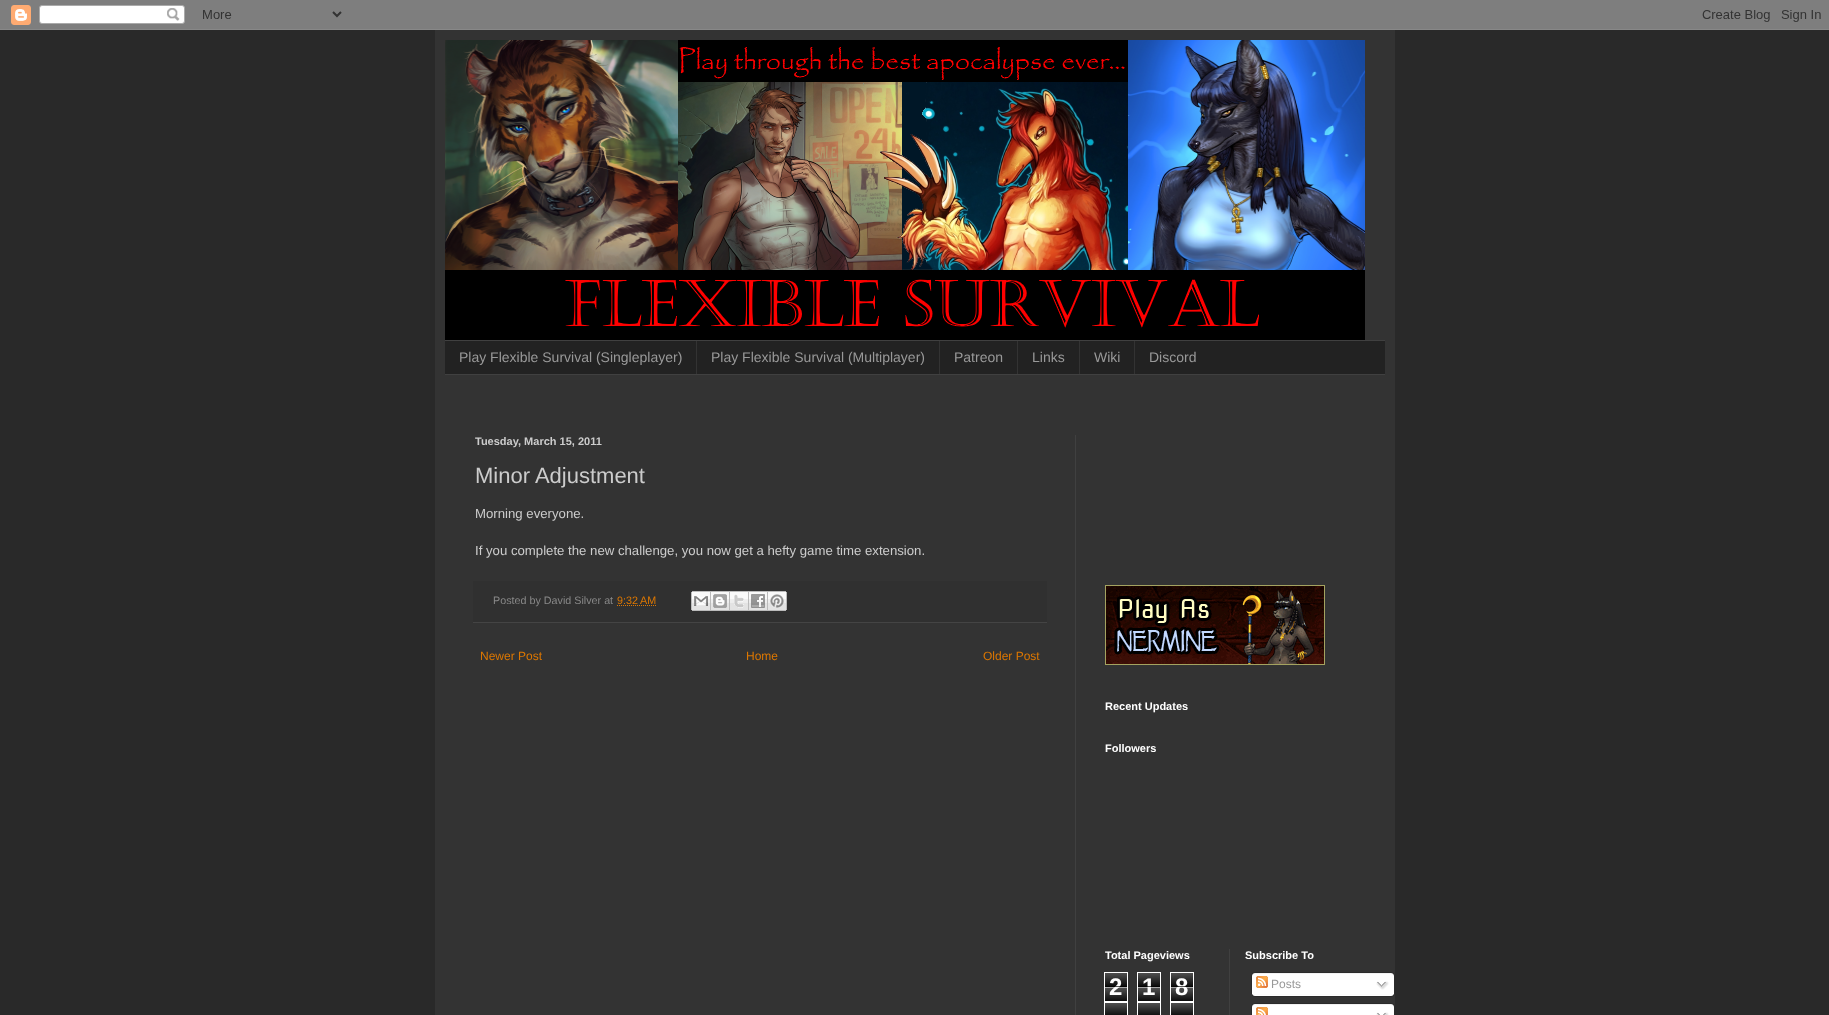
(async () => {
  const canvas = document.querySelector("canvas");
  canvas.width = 1829;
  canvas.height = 1015;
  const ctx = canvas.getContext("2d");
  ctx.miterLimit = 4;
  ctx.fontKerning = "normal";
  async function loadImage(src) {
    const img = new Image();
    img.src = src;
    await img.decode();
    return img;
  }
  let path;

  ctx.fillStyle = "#292929";
  ctx.fillRect(0, 0, 1829, 1015);
  ctx.drawImage(await loadImage("img/1.png"), 0, 0, 1829, 30);
  ctx.fillStyle = "#333333";
  ctx.fillRect(435, 30, 960, 985);
  ctx.drawImage(await loadImage("img/2.png"), 445, 40, 920, 300);
  for (const [x, y, w, h, color] of [
    [445, 341, 940, 33, "#222222"],
    [445, 340, 940, 1, "#404040"],
    [445, 374, 940, 1, "#404040"],
    [696, 341, 1, 33, "#333333"],
    [939, 341, 1, 33, "#333333"],
    [1017, 341, 1, 33, "#333333"],
    [1079, 341, 1, 33, "#333333"],
    [1134, 341, 1, 33, "#333333"],
    [1075, 435, 1, 580, "#404040"],
    [473, 581, 574, 41, "#303030"],
    [473, 622, 574, 1, "#444444"],
  ]) {
    ctx.fillStyle = color;
    ctx.fillRect(x, y, w, h);
  }
  path = new Path2D("M617 605.5H656.5");
  ctx.strokeStyle = "#dd7700";
  ctx.setLineDash([1, 1]);
  ctx.stroke(path);
  ctx.drawImage(await loadImage("img/3.png"), 691, 591, 20, 20);
  ctx.drawImage(await loadImage("img/4.png"), 711, 591, 19, 20);
  ctx.drawImage(await loadImage("img/5.png"), 730, 591, 19, 20);
  ctx.drawImage(await loadImage("img/6.png"), 749, 591, 19, 20);
  ctx.drawImage(await loadImage("img/7.png"), 768, 591, 19, 20);
  ctx.drawImage(await loadImage("img/8.png"), 1105, 585, 220, 80);
  ctx.drawImage(await loadImage("img/9.png"), 1105, 973, 22, 28);
  ctx.strokeStyle = "#ffffff";
  ctx.setLineDash([]);
  ctx.strokeRect(1104.5, 972.5, 23, 29);
  ctx.drawImage(await loadImage("img/9.png"), 1138, 973, 22, 28);
  ctx.strokeRect(1137.5, 972.5, 23, 29);
  ctx.drawImage(await loadImage("img/9.png"), 1171, 973, 22, 28);
  ctx.strokeRect(1170.5, 972.5, 23, 29);
  ctx.drawImage(await loadImage("img/10.png"), 1105, 1003, 22, 12);
  ctx.strokeRect(1104.5, 1002.5, 23, 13);
  ctx.drawImage(await loadImage("img/10.png"), 1138, 1003, 22, 12);
  ctx.strokeRect(1137.5, 1002.5, 23, 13);
  ctx.drawImage(await loadImage("img/10.png"), 1171, 1003, 22, 12);
  ctx.strokeRect(1170.5, 1002.5, 23, 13);
  ctx.fillStyle = "#404040";
  ctx.fillRect(1229, 949, 1, 66);
  ctx.drawImage(await loadImage("img/11.png"), 1251, 972, 144, 22);
  ctx.drawImage(await loadImage("img/12.png"), 1256, 976, 12, 12);
  ctx.drawImage(await loadImage("img/13.png"), 1376, 981, 13, 9);
  ctx.drawImage(await loadImage("img/14.png"), 1252, 994, 143, 3);
  ctx.drawImage(await loadImage("img/15.png"), 1251, 1003, 144, 12);
  ctx.drawImage(await loadImage("img/16.png"), 1256, 1007, 12, 8);
  ctx.drawImage(await loadImage("img/17.png"), 1376, 1012, 13, 3);
  ctx.font = "14px Liberation Sans";
  ctx.fillStyle = "#999999";
  for (const [text, x, y] of [
    ["Play Flexible Survival (Singleplayer)", 459, 362],
    ["Play Flexible Survival (Multiplayer)", 711, 362],
    ["Patreon", 954, 362],
    ["Links", 1032, 362],
    ["Wiki", 1094, 362],
    ["Discord", 1149, 362],
  ]) {
    ctx.fillText(text, x, y);
  }
  ctx.font = "bold 11px Liberation Sans";
  ctx.fillStyle = "#cccccc";
  ctx.fillText("Tuesday, March 15, 2011", 475, 445);
  ctx.font = "22px Liberation Sans";
  ctx.fillText("Minor Adjustment", 475, 483);
  ctx.font = "13.2px Liberation Sans";
  ctx.fillText("Morning everyone.", 475, 518);
  ctx.fillText("If you complete the new challenge, you now get a hefty game time extension.", 475, 555);
  ctx.font = "10.75px Liberation Sans";
  ctx.fillStyle = "#888888";
  ctx.fillText("Posted by David Silver at", 493, 604);
  ctx.fillStyle = "#dd7700";
  ctx.fillText("9:32 AM", 617, 604);
  ctx.font = "12px Liberation Sans";
  for (const [text, x, y] of [
    ["Newer Post", 480, 660],
    ["Home", 746, 660],
    ["Older Post", 983, 660],
  ]) {
    ctx.fillText(text, x, y);
  }
  ctx.font = "bold 11px Liberation Sans";
  ctx.fillStyle = "#ffffff";
  for (const [text, x, y] of [
    ["Recent Updates", 1105, 710],
    ["Followers", 1105, 752],
    ["Total Pageviews", 1105, 959],
  ]) {
    ctx.fillText(text, x, y);
  }
  ctx.font = "bold 24px Liberation Sans";
  ctx.fillText("2", 1109, 995);
  ctx.fillStyle = "rgba(0, 0, 0, 0.65)";
  ctx.fillRect(1105, 986, 22, 1);
  ctx.fillStyle = "rgba(255, 255, 255, 0.65)";
  ctx.fillRect(1105, 987, 22, 1);
  ctx.fillStyle = "#ffffff";
  ctx.fillText("1", 1142, 995);
  ctx.fillStyle = "rgba(0, 0, 0, 0.65)";
  ctx.fillRect(1138, 986, 22, 1);
  ctx.fillStyle = "rgba(255, 255, 255, 0.65)";
  ctx.fillRect(1138, 987, 22, 1);
  ctx.fillStyle = "#ffffff";
  ctx.fillText("8", 1175, 995);
  ctx.fillStyle = "rgba(0, 0, 0, 0.65)";
  ctx.fillRect(1171, 986, 22, 1);
  ctx.fillStyle = "rgba(255, 255, 255, 0.65)";
  ctx.fillRect(1171, 987, 22, 1);
  ctx.font = "bold 11px Liberation Sans";
  ctx.fillStyle = "#ffffff";
  ctx.fillText("Subscribe To", 1245, 959);
  ctx.font = "12px Liberation Sans";
  ctx.fillStyle = "#999999";
  ctx.fillText("Posts", 1271, 988);
})();
